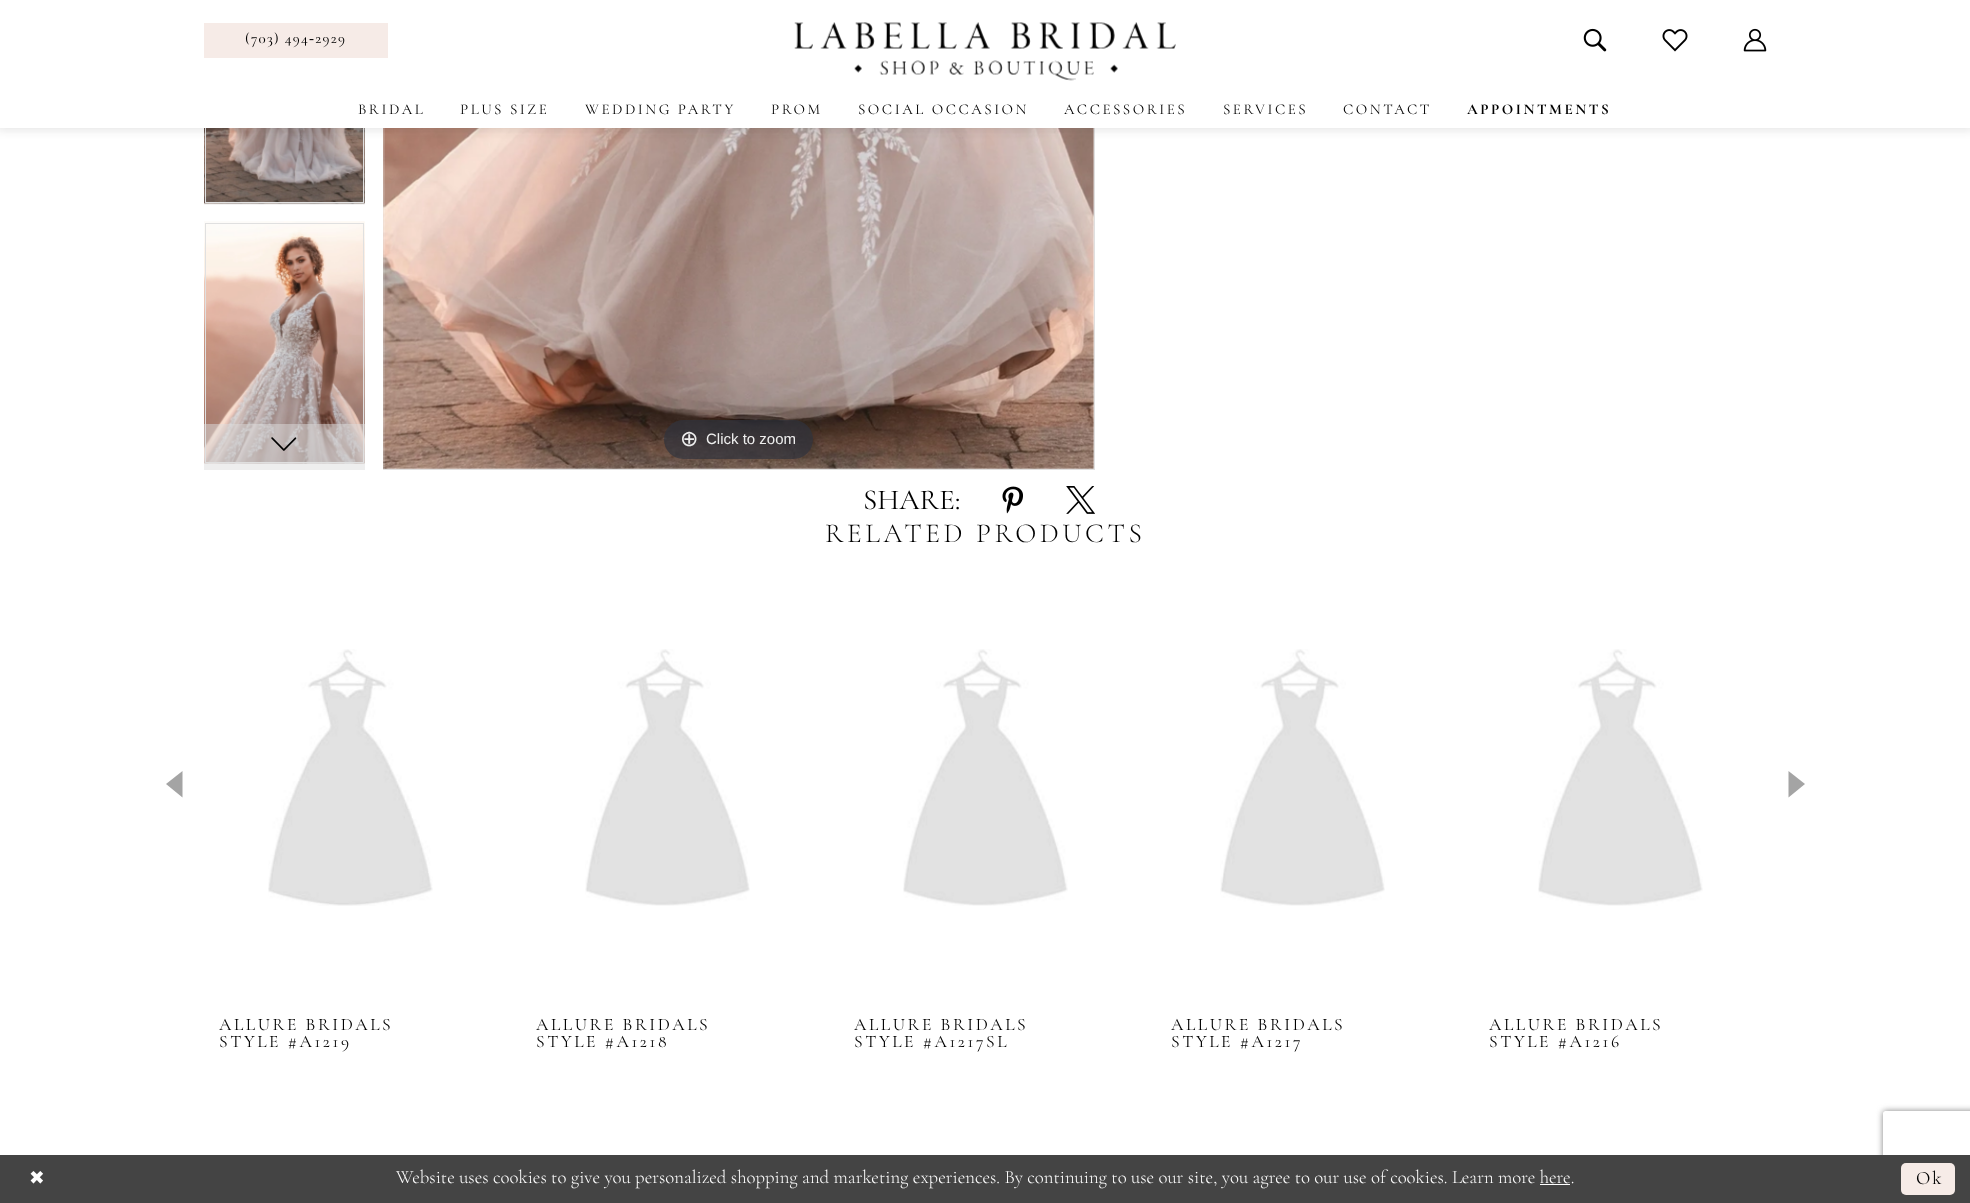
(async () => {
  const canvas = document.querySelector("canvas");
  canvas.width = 1970;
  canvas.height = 1203;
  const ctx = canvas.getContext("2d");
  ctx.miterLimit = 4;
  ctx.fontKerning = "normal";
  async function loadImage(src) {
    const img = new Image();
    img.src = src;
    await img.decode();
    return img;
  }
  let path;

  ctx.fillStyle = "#ffffff";
  ctx.fillRect(0, 0, 1970, 1203);
  ctx.drawImage(await loadImage("img/5.png"), 204, 128, 161, 77);
  ctx.strokeStyle = "#e0e0e0";
  ctx.strokeRect(205.5, -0.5, 158, 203);
  ctx.strokeRect(383.5, -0.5, 711, 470);
  ctx.drawImage(await loadImage("img/8.png"), 383, 128, 711, 341);
  ctx.fillStyle = "rgba(30, 30, 30, 0.1)";
  ctx.filter = "blur(4px)";
  ctx.beginPath();
  ctx.rect(-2, -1, 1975, 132);
  ctx.fill();
  ctx.filter = "none";
  ctx.fillStyle = "#ffffff";
  ctx.fillRect(0, 0, 1970, 128);
  ctx.fillStyle = "#f6ebe7";
  ctx.fillRect(204, 23, 184, 35);
  ctx.drawImage(await loadImage("img/1.png"), 794, 22, 382, 59);
  ctx.drawImage(await loadImage("img/2.png"), 1583, 28, 24, 24);
  ctx.drawImage(await loadImage("img/3.png"), 1662, 29, 26, 23);
  ctx.drawImage(await loadImage("img/4.png"), 1743, 28, 24, 24);
  ctx.drawImage(await loadImage("img/6.png"), 204, 221, 161, 243);
  ctx.strokeRect(205.5, 223.5, 158, 239);
  ctx.fillStyle = "rgba(222, 222, 222, 0.5)";
  ctx.fillRect(204, 424, 161, 46);
  ctx.drawImage(await loadImage("img/7.png"), 271, 437, 26, 14);
  ctx.fillStyle = "rgba(49, 51, 61, 0.7)";
  ctx.beginPath();
  ctx.roundRect(664, 420, 149, 39, 19.5);
  ctx.fill();
  ctx.drawImage(await loadImage("img/9.png"), 1002, 486, 21, 28);
  ctx.drawImage(await loadImage("img/10.png"), 1066, 486, 29, 28);
  ctx.fillStyle = "#a4a4a4";
  path = new Path2D("M166 784L182.5 797.5V771Z");
  ctx.fill(path);
  path = new Path2D("M1788.5 771V797.5L1805 784Z");
  ctx.fill(path);
  ctx.drawImage(await loadImage("img/11.png"), 268, 649, 165, 257);
  ctx.drawImage(await loadImage("img/12.png"), 585, 649, 165, 257);
  ctx.drawImage(await loadImage("img/13.png"), 903, 649, 165, 257);
  ctx.drawImage(await loadImage("img/14.png"), 1220, 649, 165, 257);
  ctx.drawImage(await loadImage("img/15.png"), 1538, 649, 165, 257);
  ctx.save();
  path = new Path2D("M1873 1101H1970V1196H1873ZM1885.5 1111H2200.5C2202 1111 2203 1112 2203 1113.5V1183.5C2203 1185 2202 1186 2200.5 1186H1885.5C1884 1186 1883 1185 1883 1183.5V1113.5C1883 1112 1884 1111 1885.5 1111Z");
  ctx.clip(path, "evenodd");
  ctx.fillStyle = "#808080";
  ctx.filter = "blur(3px)";
  ctx.beginPath();
  ctx.roundRect(1883, 1111, 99, 75, 2.5);
  ctx.fill();
  ctx.filter = "none";
  ctx.restore();
  ctx.fillStyle = "#444444";
  ctx.fillRect(0, 1155, 1970, 48);
  ctx.fillStyle = "#ffffff";
  ctx.fillRect(1540, 1184, 30, 1);
  ctx.fillStyle = "#f6ebe7";
  ctx.beginPath();
  ctx.roundRect(1901, 1163, 54, 32, 5);
  ctx.fill();
  ctx.letterSpacing = "1.25px";
  ctx.font = "500 15px Cormorant Garamond";
  ctx.fillStyle = "#000000";
  ctx.fillText("(703) 494‑2929", 245, 43);
  ctx.letterSpacing = "2.5px";
  ctx.font = "15px Cormorant Garamond";
  for (const [text, x, y] of [
    ["BRIDAL", 358, 114],
    ["PLUS SIZE", 460, 114],
    ["WEDDING PARTY", 585, 114],
    ["PROM", 771, 114],
    ["SOCIAL OCCASION", 858, 114],
    ["ACCESSORIES", 1064, 114],
    ["SERVICES", 1223, 114],
    ["CONTACT", 1343, 114],
  ]) {
    ctx.fillText(text, x, y);
  }
  ctx.font = "bold 15px Cormorant Garamond";
  ctx.fillText("APPOINTMENTS", 1467, 114);
  ctx.letterSpacing = "0px";
  ctx.font = "22px DejaVu Sans";
  ctx.fillStyle = "#eeeeee";
  ctx.fillText("⊕", 680, 446);
  ctx.font = "15px Liberation Sans";
  ctx.fillText("Click to zoom", 706, 444);
  ctx.font = "29px Cormorant Garamond";
  ctx.fillStyle = "#000000";
  ctx.fillText("SHARE:", 863, 509);
  ctx.letterSpacing = "3.6px";
  ctx.font = "300 27.5px Cormorant Garamond";
  ctx.fillText("RELATED PRODUCTS", 825, 542);
  ctx.letterSpacing = "2.6px";
  ctx.font = "17.5px Cormorant Garamond";
  for (const [text, x, y] of [
    ["ALLURE BRIDALS", 219, 1030],
    ["STYLE #A1219", 219, 1047],
    ["ALLURE BRIDALS", 536, 1030],
    ["STYLE #A1218", 536, 1047],
    ["ALLURE BRIDALS", 854, 1030],
    ["STYLE #A1217SL", 854, 1047],
    ["ALLURE BRIDALS", 1171, 1030],
    ["STYLE #A1217", 1171, 1047],
    ["ALLURE BRIDALS", 1489, 1030],
    ["STYLE #A1216", 1489, 1047],
  ]) {
    ctx.fillText(text, x, y);
  }
  ctx.letterSpacing = "2px";
  ctx.font = "18.75px DejaVu Sans";
  ctx.fillStyle = "#ffffff";
  ctx.fillText("✖", 29, 1184);
  ctx.letterSpacing = "0px";
  ctx.font = "300 18.75px Cormorant Garamond";
  ctx.fillText("Website uses cookies to give you personalized shopping and marketing experiences. By continuing to use our site, you agree to our use of cookies. Learn more here.", 396, 1183);
  ctx.letterSpacing = "2px";
  ctx.font = "18.75px Cormorant Garamond";
  ctx.fillStyle = "#000000";
  ctx.fillText("Ok", 1916, 1184);
})();
